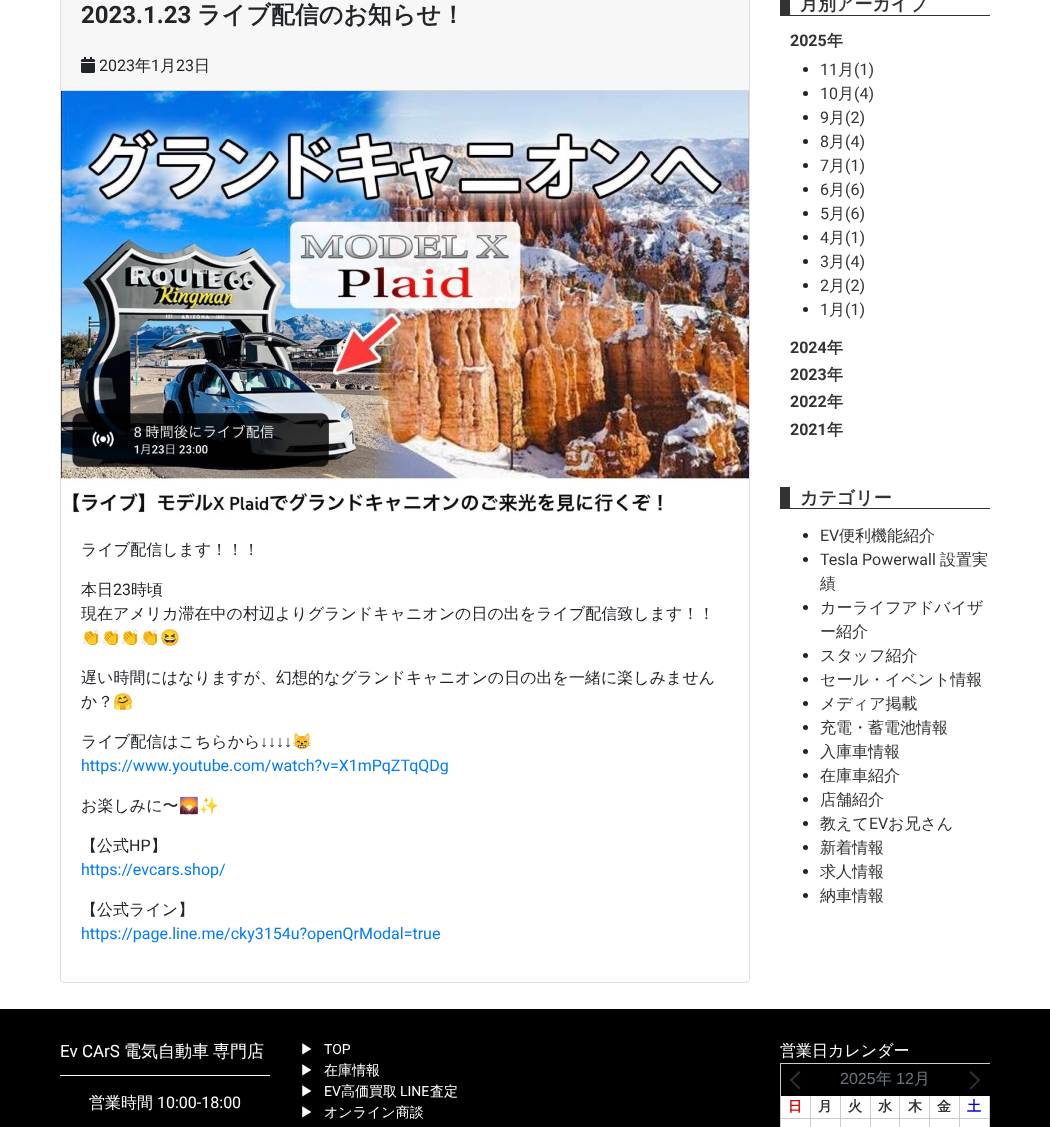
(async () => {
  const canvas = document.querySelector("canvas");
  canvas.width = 1050;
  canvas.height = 1127;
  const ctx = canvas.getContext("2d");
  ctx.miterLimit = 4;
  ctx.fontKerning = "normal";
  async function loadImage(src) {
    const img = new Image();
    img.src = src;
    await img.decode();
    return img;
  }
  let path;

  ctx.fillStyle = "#ffffff";
  ctx.fillRect(0, 0, 1050, 1127);
  ctx.beginPath();
  ctx.roundRect(60.5, -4.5, 689, 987, 3.5);
  ctx.strokeStyle = "#dfdfdf";
  ctx.stroke();
  ctx.fillStyle = "#f7f7f7";
  ctx.fillRect(61, 0, 688, 90);
  ctx.fillStyle = "#d8d8d8";
  ctx.fillRect(61, 90, 688, 1);
  ctx.drawImage(await loadImage("img/1.png"), 81, 57, 14, 16);
  ctx.drawImage(await loadImage("img/2.png"), 61, 91, 688, 422);
  ctx.fillStyle = "#333333";
  ctx.fillRect(790, 15, 200, 1);
  ctx.fillRect(780, 0, 10, 16);
  ctx.fillStyle = "#212529";
  ctx.beginPath();
  ctx.arc(805.5, 69.5, 2.5, 0, Math.PI * 2);
  ctx.fill();
  ctx.beginPath();
  ctx.arc(805.5, 93.5, 2.5, 0, Math.PI * 2);
  ctx.fill();
  ctx.beginPath();
  ctx.arc(805.5, 117.5, 2.5, 0, Math.PI * 2);
  ctx.fill();
  ctx.beginPath();
  ctx.arc(805.5, 141.5, 2.5, 0, Math.PI * 2);
  ctx.fill();
  ctx.beginPath();
  ctx.arc(805.5, 165.5, 2.5, 0, Math.PI * 2);
  ctx.fill();
  ctx.beginPath();
  ctx.arc(805.5, 189.5, 2.5, 0, Math.PI * 2);
  ctx.fill();
  ctx.beginPath();
  ctx.arc(805.5, 213.5, 2.5, 0, Math.PI * 2);
  ctx.fill();
  ctx.beginPath();
  ctx.arc(805.5, 237.5, 2.5, 0, Math.PI * 2);
  ctx.fill();
  ctx.beginPath();
  ctx.arc(805.5, 261.5, 2.5, 0, Math.PI * 2);
  ctx.fill();
  ctx.beginPath();
  ctx.arc(805.5, 285.5, 2.5, 0, Math.PI * 2);
  ctx.fill();
  ctx.beginPath();
  ctx.arc(805.5, 309.5, 2.5, 0, Math.PI * 2);
  ctx.fill();
  ctx.fillStyle = "#333333";
  ctx.fillRect(790, 508, 200, 1);
  ctx.fillRect(780, 487, 10, 22);
  ctx.fillStyle = "#212529";
  ctx.beginPath();
  ctx.arc(805.5, 535.5, 2.5, 0, Math.PI * 2);
  ctx.fill();
  ctx.beginPath();
  ctx.arc(805.5, 559.5, 2.5, 0, Math.PI * 2);
  ctx.fill();
  ctx.beginPath();
  ctx.arc(805.5, 607.5, 2.5, 0, Math.PI * 2);
  ctx.fill();
  ctx.beginPath();
  ctx.arc(805.5, 655.5, 2.5, 0, Math.PI * 2);
  ctx.fill();
  ctx.beginPath();
  ctx.arc(805.5, 679.5, 2.5, 0, Math.PI * 2);
  ctx.fill();
  ctx.beginPath();
  ctx.arc(805.5, 703.5, 2.5, 0, Math.PI * 2);
  ctx.fill();
  ctx.beginPath();
  ctx.arc(805.5, 727.5, 2.5, 0, Math.PI * 2);
  ctx.fill();
  ctx.beginPath();
  ctx.arc(805.5, 751.5, 2.5, 0, Math.PI * 2);
  ctx.fill();
  ctx.beginPath();
  ctx.arc(805.5, 775.5, 2.5, 0, Math.PI * 2);
  ctx.fill();
  ctx.beginPath();
  ctx.arc(805.5, 799.5, 2.5, 0, Math.PI * 2);
  ctx.fill();
  ctx.beginPath();
  ctx.arc(805.5, 823.5, 2.5, 0, Math.PI * 2);
  ctx.fill();
  ctx.beginPath();
  ctx.arc(805.5, 847.5, 2.5, 0, Math.PI * 2);
  ctx.fill();
  ctx.beginPath();
  ctx.arc(805.5, 871.5, 2.5, 0, Math.PI * 2);
  ctx.fill();
  ctx.beginPath();
  ctx.arc(805.5, 895.5, 2.5, 0, Math.PI * 2);
  ctx.fill();
  for (const [x, y, w, h, color] of [
    [0, 1009, 1050, 118, "#000000"],
    [60, 1075, 210, 1, "#ffffff"],
    [780, 1063, 210, 1, "#cccccc"],
    [780, 1063, 1, 64, "#cccccc"],
  ]) {
    ctx.fillStyle = color;
    ctx.fillRect(x, y, w, h);
  }
  ctx.fillStyle = "#333333";
  path = new Path2D("M791 1079L800.5 1088L799 1089.5L790 1080Z");
  ctx.fill(path);
  path = new Path2D("M799 1071L800.5 1072.5L791 1081.5L790 1080Z");
  ctx.fill(path);
  path = new Path2D("M971 1071L980 1080L979 1081.5L969.5 1072.5Z");
  ctx.fill(path);
  path = new Path2D("M979 1079L980 1080L971 1089.5L969.5 1088Z");
  ctx.fill(path);
  for (const [x, y, w, h, color] of [
    [781, 1096, 29, 22, "#ffffff"],
    [810, 1096, 1, 22, "#cccccc"],
    [811, 1096, 29, 22, "#ffffff"],
    [840, 1096, 1, 22, "#cccccc"],
    [841, 1096, 29, 22, "#ffffff"],
    [870, 1096, 1, 22, "#cccccc"],
    [871, 1096, 28, 22, "#ffffff"],
    [899, 1096, 1, 22, "#cccccc"],
    [900, 1096, 29, 22, "#ffffff"],
    [929, 1096, 1, 22, "#cccccc"],
    [930, 1096, 29, 22, "#ffffff"],
    [959, 1096, 1, 22, "#cccccc"],
    [960, 1096, 29, 22, "#ffffff"],
    [989, 1096, 1, 22, "#cccccc"],
    [781, 1119, 208, 8, "#ffffff"],
    [781, 1118, 209, 1, "#cccccc"],
    [810, 1118, 1, 9, "#cccccc"],
    [840, 1118, 1, 9, "#cccccc"],
    [870, 1118, 1, 9, "#cccccc"],
    [899, 1118, 1, 9, "#cccccc"],
    [929, 1118, 1, 9, "#cccccc"],
    [959, 1118, 1, 9, "#cccccc"],
    [989, 1118, 1, 9, "#cccccc"],
  ]) {
    ctx.fillStyle = color;
    ctx.fillRect(x, y, w, h);
  }
  ctx.font = "bold 24px Roboto";
  ctx.fillStyle = "#212529";
  ctx.fillText("2023.1.23", 81, 23);
  ctx.font = "bold 24px WenQuanYi Zen Hei";
  ctx.fillText("ライブ配信のお知らせ！", 197, 23);
  ctx.font = "16px Roboto";
  ctx.fillText("2023", 99, 71);
  ctx.font = "500 16px WenQuanYi Zen Hei";
  ctx.fillText("年", 135, 71);
  ctx.font = "16px Roboto";
  ctx.fillText("1", 151, 71);
  ctx.font = "500 16px WenQuanYi Zen Hei";
  ctx.fillText("月", 160, 71);
  ctx.font = "16px Roboto";
  ctx.fillText("23", 176, 71);
  ctx.font = "500 16px WenQuanYi Zen Hei";
  for (const [text, x, y] of [
    ["日", 194, 71],
    ["ライブ配信します！！！", 81, 555],
    ["本日", 81, 595],
  ]) {
    ctx.fillText(text, x, y);
  }
  ctx.font = "16px Roboto";
  ctx.fillText("23", 113, 595);
  ctx.font = "500 16px WenQuanYi Zen Hei";
  ctx.fillText("時頃", 131, 595);
  ctx.fillText("現在アメリカ滞在中の村辺よりグランドキャニオンの日の出をライブ配信致します！！", 81, 619);
  ctx.font = "16px Noto Color Emoji";
  ctx.fillText("👏👏👏👏😆", 81, 643);
  ctx.font = "500 16px WenQuanYi Zen Hei";
  ctx.fillText("遅い時間にはなりますが、幻想的なグランドキャニオンの日の出を一緒に楽しみません", 81, 683);
  ctx.fillText("か？", 81, 707);
  ctx.font = "16px Noto Color Emoji";
  ctx.fillText("🤗", 113, 707);
  ctx.font = "500 16px WenQuanYi Zen Hei";
  ctx.fillText("ライブ配信はこちらから", 81, 747);
  ctx.font = "16px Liberation Sans";
  ctx.fillText("↓↓↓↓", 260, 747);
  ctx.font = "16px Noto Color Emoji";
  ctx.fillText("😸", 292, 747);
  ctx.font = "16px Roboto";
  ctx.fillStyle = "#007bff";
  ctx.fillText("https://www.youtube.com/watch?v=X1mPqZTqQDg", 81, 771);
  ctx.font = "500 16px WenQuanYi Zen Hei";
  ctx.fillStyle = "#212529";
  ctx.fillText("お楽しみに〜", 81, 811);
  ctx.font = "16px Noto Color Emoji";
  ctx.fillText("🌄✨", 179, 811);
  ctx.font = "500 16px WenQuanYi Zen Hei";
  ctx.fillText("【公式", 81, 851);
  ctx.font = "16px Roboto";
  ctx.fillText("HP", 129, 851);
  ctx.font = "500 16px WenQuanYi Zen Hei";
  ctx.fillText("】", 151, 851);
  ctx.font = "16px Roboto";
  ctx.fillStyle = "#007bff";
  ctx.fillText("https://evcars.shop/", 81, 875);
  ctx.font = "500 16px WenQuanYi Zen Hei";
  ctx.fillStyle = "#212529";
  ctx.fillText("【公式ライン】", 81, 915);
  ctx.font = "16px Roboto";
  ctx.fillStyle = "#007bff";
  ctx.fillText("https://page.line.me/cky3154u?openQrModal=true", 81, 939);
  ctx.font = "bold 18px WenQuanYi Zen Hei";
  ctx.fillStyle = "#333333";
  ctx.fillText("月別アーカイブ", 800, 10);
  ctx.font = "bold 16px Roboto";
  ctx.fillText("2025", 790, 46);
  ctx.font = "bold 16px WenQuanYi Zen Hei";
  ctx.fillText("年", 827, 46);
  ctx.font = "16px Roboto";
  ctx.fillText("11", 820, 75);
  ctx.font = "500 16px WenQuanYi Zen Hei";
  ctx.fillText("月", 838, 75);
  ctx.font = "16px Roboto";
  ctx.fillText("(1)", 854, 75);
  ctx.fillText("10", 820, 99);
  ctx.font = "500 16px WenQuanYi Zen Hei";
  ctx.fillText("月", 838, 99);
  ctx.font = "16px Roboto";
  ctx.fillText("(4)", 854, 99);
  ctx.fillText("9", 820, 123);
  ctx.font = "500 16px WenQuanYi Zen Hei";
  ctx.fillText("月", 829, 123);
  ctx.font = "16px Roboto";
  ctx.fillText("(2)", 845, 123);
  ctx.fillText("8", 820, 147);
  ctx.font = "500 16px WenQuanYi Zen Hei";
  ctx.fillText("月", 829, 147);
  ctx.font = "16px Roboto";
  ctx.fillText("(4)", 845, 147);
  ctx.fillText("7", 820, 171);
  ctx.font = "500 16px WenQuanYi Zen Hei";
  ctx.fillText("月", 829, 171);
  ctx.font = "16px Roboto";
  ctx.fillText("(1)", 845, 171);
  ctx.fillText("6", 820, 195);
  ctx.font = "500 16px WenQuanYi Zen Hei";
  ctx.fillText("月", 829, 195);
  ctx.font = "16px Roboto";
  ctx.fillText("(6)", 845, 195);
  ctx.fillText("5", 820, 219);
  ctx.font = "500 16px WenQuanYi Zen Hei";
  ctx.fillText("月", 829, 219);
  ctx.font = "16px Roboto";
  ctx.fillText("(6)", 845, 219);
  ctx.fillText("4", 820, 243);
  ctx.font = "500 16px WenQuanYi Zen Hei";
  ctx.fillText("月", 829, 243);
  ctx.font = "16px Roboto";
  ctx.fillText("(1)", 845, 243);
  ctx.fillText("3", 820, 267);
  ctx.font = "500 16px WenQuanYi Zen Hei";
  ctx.fillText("月", 829, 267);
  ctx.font = "16px Roboto";
  ctx.fillText("(4)", 845, 267);
  ctx.fillText("2", 820, 291);
  ctx.font = "500 16px WenQuanYi Zen Hei";
  ctx.fillText("月", 829, 291);
  ctx.font = "16px Roboto";
  ctx.fillText("(2)", 845, 291);
  ctx.fillText("1", 820, 315);
  ctx.font = "500 16px WenQuanYi Zen Hei";
  ctx.fillText("月", 829, 315);
  ctx.font = "16px Roboto";
  ctx.fillText("(1)", 845, 315);
  ctx.font = "bold 16px Roboto";
  ctx.fillText("2024", 790, 353);
  ctx.font = "bold 16px WenQuanYi Zen Hei";
  ctx.fillText("年", 827, 353);
  ctx.font = "bold 16px Roboto";
  ctx.fillText("2023", 790, 380);
  ctx.font = "bold 16px WenQuanYi Zen Hei";
  ctx.fillText("年", 827, 380);
  ctx.font = "bold 16px Roboto";
  ctx.fillText("2022", 790, 407);
  ctx.font = "bold 16px WenQuanYi Zen Hei";
  ctx.fillText("年", 827, 407);
  ctx.font = "bold 16px Roboto";
  ctx.fillText("2021", 790, 435);
  ctx.font = "bold 16px WenQuanYi Zen Hei";
  ctx.fillText("年", 827, 435);
  ctx.font = "bold 18px WenQuanYi Zen Hei";
  ctx.fillText("カテゴリー", 800, 504);
  ctx.font = "16px Roboto";
  ctx.fillText("EV", 820, 541);
  ctx.font = "500 16px WenQuanYi Zen Hei";
  ctx.fillText("便利機能紹介", 839, 541);
  ctx.font = "16px Roboto";
  ctx.fillText("Tesla Powerwall", 820, 565);
  ctx.font = "500 16px WenQuanYi Zen Hei";
  for (const [text, x, y] of [
    ["設置実", 940, 565],
    ["績", 820, 589],
    ["カーライフアドバイザ", 820, 613],
    ["ー紹介", 820, 637],
    ["スタッフ紹介", 820, 661],
    ["セール・イベント情報", 820, 685],
    ["メディア掲載", 820, 709],
    ["充電・蓄電池情報", 820, 733],
    ["入庫車情報", 820, 757],
    ["在庫車紹介", 820, 781],
    ["店舗紹介", 820, 805],
    ["教えて", 820, 829],
  ]) {
    ctx.fillText(text, x, y);
  }
  ctx.font = "16px Roboto";
  ctx.fillText("EV", 869, 829);
  ctx.font = "500 16px WenQuanYi Zen Hei";
  for (const [text, x, y] of [
    ["お兄さん", 888, 829],
    ["新着情報", 820, 853],
    ["求人情報", 820, 877],
    ["納車情報", 820, 901],
  ]) {
    ctx.fillText(text, x, y);
  }
  ctx.font = "17px Roboto";
  ctx.fillStyle = "#ffffff";
  ctx.fillText("Ev CArS", 60, 1057);
  ctx.font = "500 17px WenQuanYi Zen Hei";
  ctx.fillText("電気自動車", 124, 1057);
  ctx.fillText("専門店", 213, 1057);
  ctx.font = "500 16px WenQuanYi Zen Hei";
  ctx.fillText("営業時間", 89, 1108);
  ctx.font = "16px Roboto";
  ctx.fillText("10:00-18:00", 157, 1108);
  ctx.font = "500 14px WenQuanYi Zen Hei";
  ctx.fillText("▶︎", 300, 1054);
  ctx.font = "14px Roboto";
  ctx.fillText("TOP", 324, 1054);
  ctx.font = "500 14px WenQuanYi Zen Hei";
  for (const [text, x, y] of [
    ["▶︎", 300, 1075],
    ["在庫情報", 324, 1075],
    ["▶︎", 300, 1096],
  ]) {
    ctx.fillText(text, x, y);
  }
  ctx.font = "14px Roboto";
  ctx.fillText("EV", 324, 1096);
  ctx.font = "500 14px WenQuanYi Zen Hei";
  ctx.fillText("高価買取", 341, 1096);
  ctx.font = "14px Roboto";
  ctx.fillText("LINE", 400, 1096);
  ctx.font = "500 14px WenQuanYi Zen Hei";
  for (const [text, x, y] of [
    ["査定", 430, 1096],
    ["▶︎", 300, 1117],
    ["オンライン商談", 324, 1117],
  ]) {
    ctx.fillText(text, x, y);
  }
  ctx.font = "500 16px WenQuanYi Zen Hei";
  ctx.fillText("営業日カレンダー", 780, 1056);
  ctx.font = "16px Liberation Sans";
  ctx.fillStyle = "#6c757d";
  ctx.fillText("2025", 840, 1084);
  ctx.font = "500 16px WenQuanYi Zen Hei";
  ctx.fillText("年", 876, 1084);
  ctx.font = "16px Liberation Sans";
  ctx.fillText("12", 896, 1084);
  ctx.font = "500 16px WenQuanYi Zen Hei";
  ctx.fillText("月", 914, 1084);
  ctx.font = "bold 14px WenQuanYi Zen Hei";
  ctx.fillStyle = "#dd0000";
  ctx.fillText("日", 788, 1111);
  ctx.fillStyle = "#333333";
  for (const [text, x, y] of [
    ["月", 818, 1111],
    ["火", 848, 1111],
    ["水", 878, 1111],
    ["木", 908, 1111],
    ["金", 937, 1111],
  ]) {
    ctx.fillText(text, x, y);
  }
  ctx.fillStyle = "#0000dd";
  ctx.fillText("土", 967, 1111);
})();
